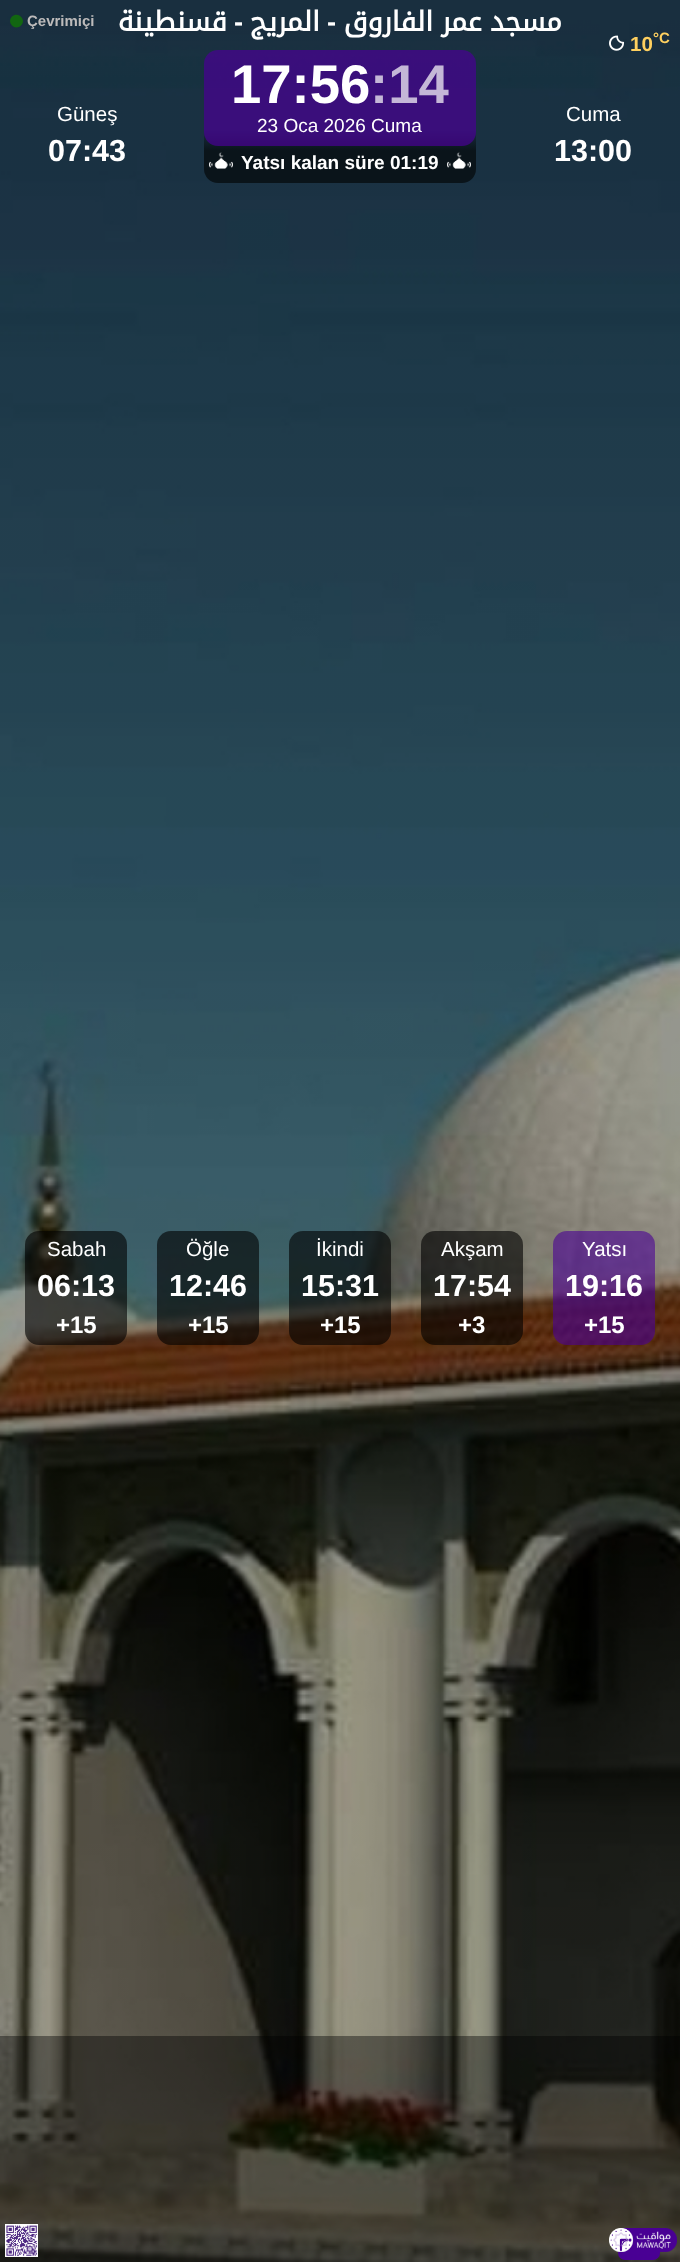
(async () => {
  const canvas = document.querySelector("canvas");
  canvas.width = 680;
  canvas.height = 2262;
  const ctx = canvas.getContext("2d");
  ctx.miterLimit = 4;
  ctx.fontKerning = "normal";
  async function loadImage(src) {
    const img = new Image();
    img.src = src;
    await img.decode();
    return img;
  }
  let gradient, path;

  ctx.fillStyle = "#ffffff";
  ctx.fillRect(0, 0, 680, 2262);
  ctx.drawImage(await loadImage("img/1.png"), 0, 0, 680, 2262);
  ctx.fillStyle = "#126611";
  path = new Path2D("M12 16.5C18 11 27 19.5 21 25.5C15 31.5 6 22.5 12 16.5Z");
  ctx.fill(path);
  ctx.drawImage(await loadImage("img/2.png"), 609, 35, 16, 16);
  gradient = ctx.createLinearGradient(340, 183, 340, 129);
  gradient.addColorStop(0.6, "#0a141a");
  gradient.addColorStop(1, "#193142");
  ctx.fillStyle = gradient;
  ctx.beginPath();
  ctx.roundRect(204, 129, 272, 54, [0, 0, 14, 14]);
  ctx.fill();
  ctx.fillStyle = "rgba(73, 0, 148, 0.7)";
  ctx.beginPath();
  ctx.roundRect(204, 50, 272, 96, 14);
  ctx.fill();
  ctx.drawImage(await loadImage("img/3.png"), 209, 152, 24, 17);
  ctx.drawImage(await loadImage("img/3.png"), 447, 152, 24, 17);
  ctx.fillStyle = "rgba(0, 0, 0, 0.6)";
  ctx.beginPath();
  ctx.roundRect(25, 1231, 102, 114, 14);
  ctx.fill();
  ctx.beginPath();
  ctx.roundRect(157, 1231, 102, 114, 14);
  ctx.fill();
  ctx.beginPath();
  ctx.roundRect(289, 1231, 102, 114, 14);
  ctx.fill();
  ctx.beginPath();
  ctx.roundRect(421, 1231, 102, 114, 14);
  ctx.fill();
  ctx.fillStyle = "rgba(73, 0, 148, 0.6)";
  ctx.beginPath();
  ctx.roundRect(553, 1231, 102, 114, 14);
  ctx.fill();
  ctx.fillStyle = "rgba(0, 0, 0, 0.4)";
  ctx.fillRect(0, 2036, 680, 226);
  ctx.drawImage(await loadImage("img/4.png"), 5, 2224, 33, 33);
  ctx.fillStyle = "#490094";
  ctx.beginPath();
  ctx.roundRect(618, 2249, 42, 11, [0, 0, 7, 7]);
  ctx.fill();
  ctx.drawImage(await loadImage("img/5.png"), 609, 2228, 68, 24);
  ctx.font = "bold 15px Liberation Sans";
  ctx.fillStyle = "#bdbbbb";
  ctx.fillText("Çevrimiçi", 27, 26);
  ctx.direction = "rtl";
  ctx.font = "bold 27.25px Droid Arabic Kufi";
  ctx.fillStyle = "#ffffff";
  ctx.fillText("قسنطينة", 227, 31);
  ctx.font = "bold 27.25px Liberation Sans";
  ctx.fillText("-", 243, 31);
  ctx.font = "bold 27.25px Droid Arabic Kufi";
  ctx.fillText("المريج", 320, 31);
  ctx.font = "bold 27.25px Liberation Sans";
  ctx.fillText("-", 336, 31);
  ctx.wordSpacing = "-1px";
  ctx.font = "bold 27.25px Droid Arabic Kufi";
  ctx.fillText("مسجد عمر الفاروق", 562, 31);
  ctx.wordSpacing = "0px";
  ctx.direction = "ltr";
  ctx.font = "bold 20.5px Liberation Sans";
  ctx.fillStyle = "#ffd05f";
  ctx.fillText("10", 630, 51);
  ctx.font = "bold 15px Liberation Sans";
  ctx.fillText("°C", 653, 43);
  ctx.font = "20.5px Liberation Sans";
  ctx.fillStyle = "#ffffff";
  ctx.fillText("Güneş", 57, 121);
  ctx.font = "bold 30.5px Liberation Sans";
  ctx.fillText("07:43", 48, 161);
  ctx.font = "bold 54.5px Liberation Sans";
  ctx.fillText("17:56", 231, 103);
  ctx.fillStyle = "#c4b7d7";
  ctx.fillText(":14", 370, 103);
  ctx.font = "19px Liberation Sans";
  ctx.fillStyle = "#ffffff";
  ctx.fillText("23 Oca 2026 Cuma", 257, 132);
  ctx.font = "bold 19px Liberation Sans";
  ctx.fillText("Yatsı kalan süre 01:19", 241, 169);
  ctx.font = "20.5px Liberation Sans";
  ctx.fillText("Cuma", 566, 121);
  ctx.font = "bold 30.5px Liberation Sans";
  ctx.fillText("13:00", 554, 161);
  ctx.font = "20.5px Liberation Sans";
  ctx.fillText("Sabah", 47, 1256);
  ctx.font = "bold 30.5px Liberation Sans";
  ctx.fillText("06:13", 37, 1296);
  ctx.font = "bold 24px Liberation Sans";
  ctx.fillText("+15", 56, 1333);
  ctx.font = "20.5px Liberation Sans";
  ctx.fillText("Öğle", 186, 1256);
  ctx.font = "bold 30.5px Liberation Sans";
  ctx.fillText("12:46", 169, 1296);
  ctx.font = "bold 24px Liberation Sans";
  ctx.fillText("+15", 188, 1333);
  ctx.font = "20.5px Liberation Sans";
  ctx.fillText("İkindi", 316, 1256);
  ctx.font = "bold 30.5px Liberation Sans";
  ctx.fillText("15:31", 301, 1296);
  ctx.font = "bold 24px Liberation Sans";
  ctx.fillText("+15", 320, 1333);
  ctx.font = "20.5px Liberation Sans";
  ctx.fillText("Akşam", 441, 1256);
  ctx.font = "bold 30.5px Liberation Sans";
  ctx.fillText("17:54", 433, 1296);
  ctx.font = "bold 24px Liberation Sans";
  ctx.fillText("+3", 458, 1333);
  ctx.font = "20.5px Liberation Sans";
  ctx.fillText("Yatsı", 582, 1256);
  ctx.font = "bold 30.5px Liberation Sans";
  ctx.fillText("19:16", 565, 1296);
  ctx.font = "bold 24px Liberation Sans";
  ctx.fillText("+15", 584, 1333);
})();
